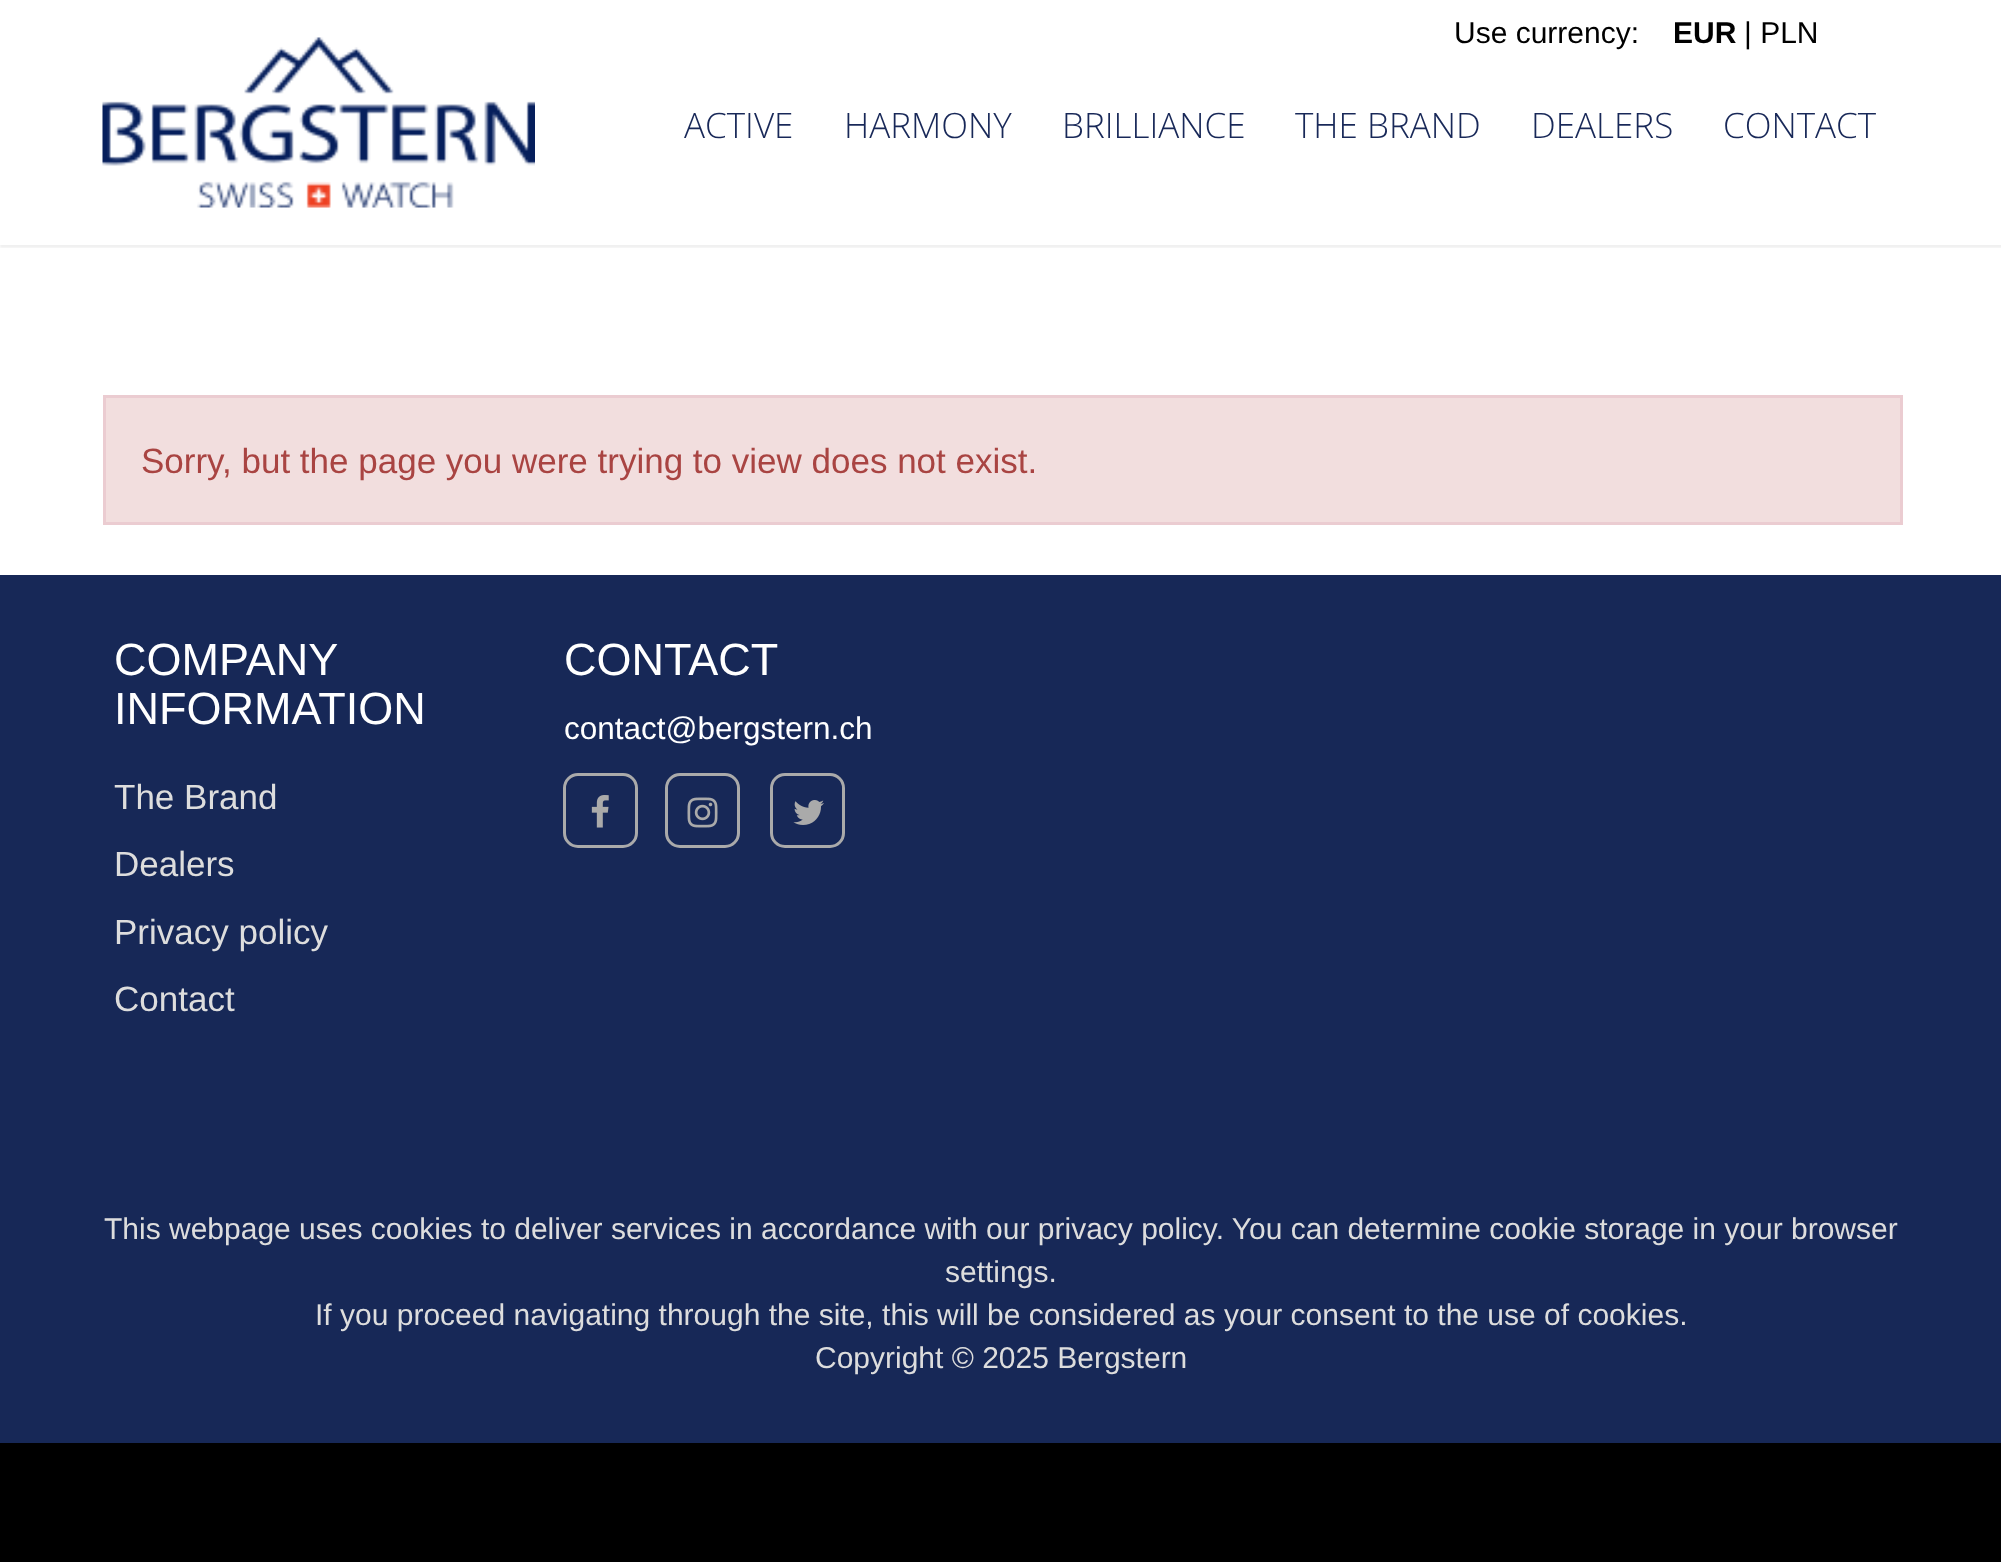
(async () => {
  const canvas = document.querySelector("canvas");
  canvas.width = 2001;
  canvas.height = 1562;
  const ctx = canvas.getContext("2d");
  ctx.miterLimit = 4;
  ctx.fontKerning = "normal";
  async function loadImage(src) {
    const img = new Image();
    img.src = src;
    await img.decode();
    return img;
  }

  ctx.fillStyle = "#000000";
  ctx.fillRect(0, 0, 2001, 1562);
  ctx.fillStyle = "#ffffff";
  ctx.fillRect(0, 0, 2001, 575);
  ctx.save();
  ctx.beginPath();
  ctx.rect(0, 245, 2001, 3);
  ctx.clip();
  ctx.fillStyle = "rgba(0, 0, 0, 0.06)";
  ctx.filter = "blur(1px)";
  ctx.beginPath();
  ctx.rect(0, 3, 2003, 245);
  ctx.fill();
  ctx.filter = "none";
  ctx.restore();
  ctx.drawImage(await loadImage("img/1.png"), 102, 37, 433, 171);
  ctx.fillStyle = "#f2dede";
  ctx.beginPath();
  ctx.rect(104.5, 396.5, 1797, 127);
  ctx.fill();
  ctx.strokeStyle = "#ebccd1";
  ctx.lineWidth = 3;
  ctx.stroke();
  ctx.fillStyle = "#172857";
  ctx.fillRect(0, 575, 2001, 868);
  ctx.beginPath();
  ctx.roundRect(564.5, 774.5, 72, 72, 13.5);
  ctx.strokeStyle = "#aaaaaa";
  ctx.stroke();
  ctx.drawImage(await loadImage("img/2.png"), 591, 795, 18, 33);
  ctx.beginPath();
  ctx.roundRect(666.5, 774.5, 72, 72, 13.5);
  ctx.stroke();
  ctx.drawImage(await loadImage("img/3.png"), 687, 797, 31, 31);
  ctx.beginPath();
  ctx.roundRect(771.5, 774.5, 72, 72, 13.5);
  ctx.stroke();
  ctx.drawImage(await loadImage("img/4.png"), 793, 800, 31, 25);
  ctx.font = "30px Liberation Sans";
  ctx.fillStyle = "#000000";
  ctx.fillText("Use currency:", 1454, 43);
  ctx.font = "bold 30px Liberation Sans";
  ctx.fillText("EUR", 1673, 43);
  ctx.font = "30px Liberation Sans";
  ctx.fillText("| PLN", 1744, 43);
  ctx.font = "300 35px Open Sans";
  ctx.fillStyle = "#182858";
  for (const [text, x, y] of [
    ["ACTIVE", 684, 138],
    ["HARMONY", 844, 138],
    ["BRILLIANCE", 1062, 138],
    ["THE BRAND", 1295, 138],
    ["DEALERS", 1531, 138],
    ["CONTACT", 1723, 138],
  ]) {
    ctx.fillText(text, x, y);
  }
  ctx.font = "35px Liberation Sans";
  ctx.fillStyle = "#a94442";
  ctx.fillText("Sorry, but the page you were trying to view does not exist.", 141, 473);
  ctx.font = "45px Liberation Sans";
  ctx.fillStyle = "#ffffff";
  ctx.fillText("COMPANY", 114, 675);
  ctx.fillText("INFORMATION", 114, 724);
  ctx.font = "35px Liberation Sans";
  ctx.fillStyle = "#dddddd";
  for (const [text, x, y] of [
    ["The Brand", 114, 809],
    ["Dealers", 114, 876],
    ["Privacy policy", 114, 944],
    ["Contact", 114, 1011],
  ]) {
    ctx.fillText(text, x, y);
  }
  ctx.font = "45px Liberation Sans";
  ctx.fillStyle = "#ffffff";
  ctx.fillText("CONTACT", 564, 675);
  ctx.font = "31.5px Liberation Sans";
  ctx.fillText("contact@bergstern.ch", 564, 739);
  ctx.font = "30px Liberation Sans";
  ctx.fillStyle = "#dddddd";
  for (const [text, x, y] of [
    ["This webpage uses cookies to deliver services in accordance with our privacy policy. You can determine cookie storage in your browser", 104, 1239],
    ["settings.", 945, 1282],
    ["If you proceed navigating through the site, this will be considered as your consent to the use of cookies.", 315, 1325],
    ["Copyright © 2025 Bergstern", 815, 1368],
  ]) {
    ctx.fillText(text, x, y);
  }
})();
